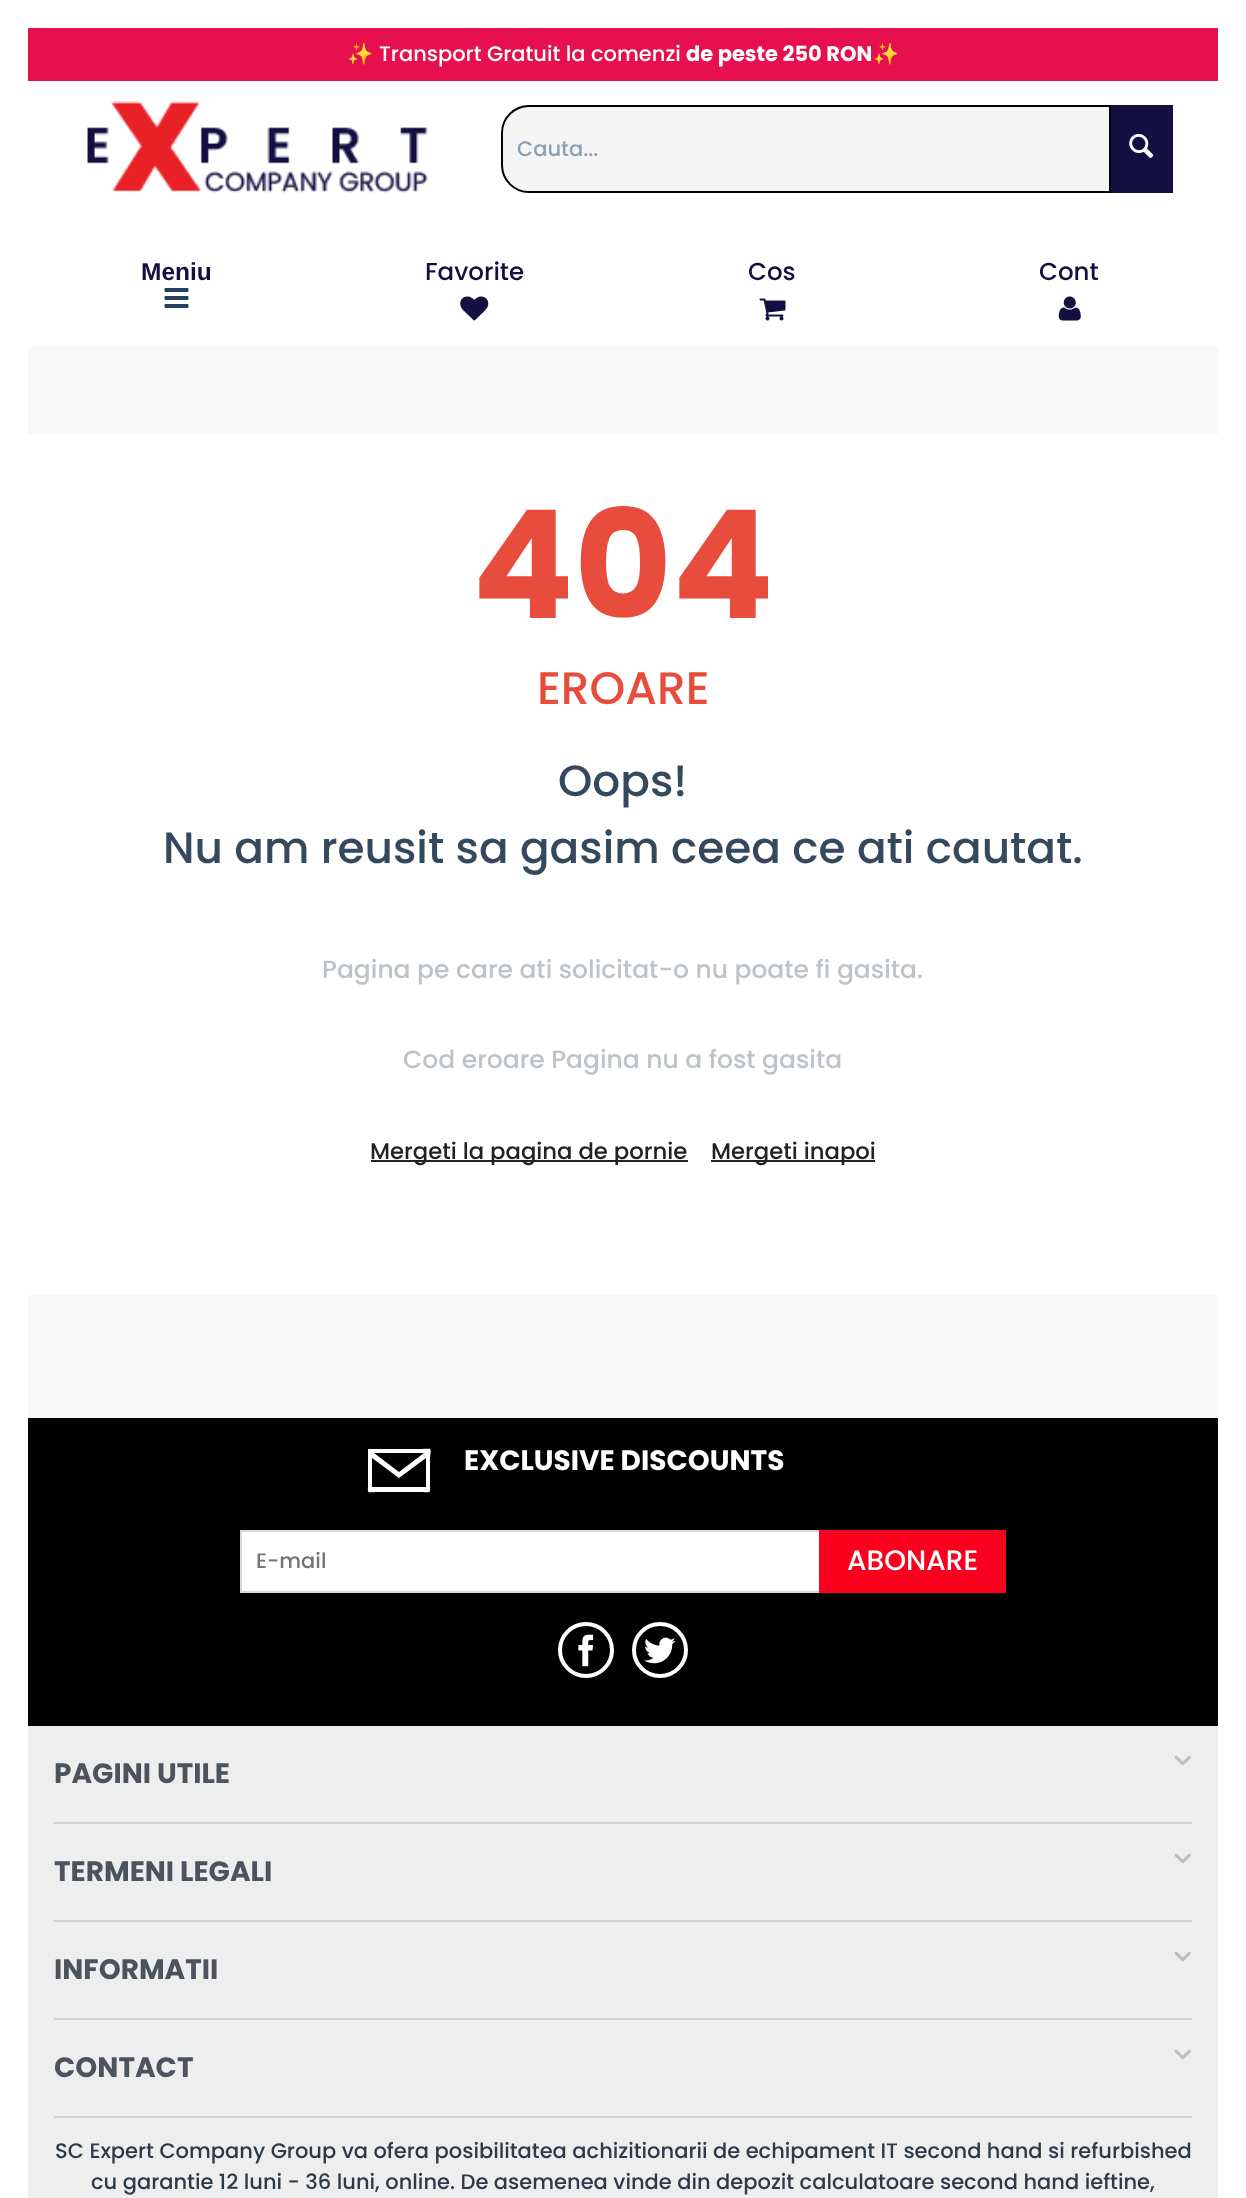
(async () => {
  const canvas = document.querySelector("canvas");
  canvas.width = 1246;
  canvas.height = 2198;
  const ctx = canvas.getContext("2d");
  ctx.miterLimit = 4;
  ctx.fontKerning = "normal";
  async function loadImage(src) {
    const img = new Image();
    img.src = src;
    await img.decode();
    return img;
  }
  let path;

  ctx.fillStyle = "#ffffff";
  ctx.fillRect(0, 0, 1246, 2198);
  ctx.fillStyle = "#f8f8f8";
  ctx.fillRect(28, 347, 1190, 1071);
  ctx.fillStyle = "#e5104d";
  ctx.fillRect(28, 28, 1190, 53);
  ctx.drawImage(await loadImage("img/1.png"), 87, 101, 341, 92);
  ctx.fillStyle = "#f5f5f5";
  ctx.beginPath();
  ctx.roundRect(502, 106, 608, 86, [27, 0, 0, 27]);
  ctx.fill();
  ctx.strokeStyle = "#000000";
  ctx.lineWidth = 2;
  ctx.stroke();
  ctx.fillStyle = "#130f40";
  ctx.fillRect(1111, 105, 62, 88);
  ctx.drawImage(await loadImage("img/2.png"), 1129, 133, 25, 25);
  ctx.drawImage(await loadImage("img/3.png"), 164, 288, 25, 20);
  ctx.drawImage(await loadImage("img/4.png"), 460, 296, 29, 25);
  ctx.drawImage(await loadImage("img/5.png"), 759, 298, 27, 23);
  ctx.drawImage(await loadImage("img/6.png"), 1058, 296, 23, 25);
  for (const [x, y, w, h, color] of [
    [28, 434, 1190, 861, "#ffffff"],
    [371, 1160, 317, 2, "#222222"],
    [711, 1160, 164, 2, "#222222"],
    [28, 1726, 1190, 472, "#eeeeee"],
    [28, 1418, 1190, 308, "#010101"],
  ]) {
    ctx.fillStyle = color;
    ctx.fillRect(x, y, w, h);
  }
  ctx.fillStyle = "#ffffff";
  path = new Path2D("M368 1449V1484C368 1495 366 1492 379 1492H419C432 1492 430 1495 430 1484V1463C430 1446 435 1449 419 1449ZM424 1453L399 1472L374 1453ZM426 1487H372V1458L399 1478L426 1458Z");
  ctx.fill(path);
  ctx.beginPath();
  ctx.rect(241, 1531, 579, 61);
  ctx.fill();
  ctx.strokeStyle = "#d9d9d9";
  ctx.stroke();
  ctx.fillStyle = "#fb001e";
  ctx.fillRect(819, 1530, 187, 63);
  ctx.beginPath();
  ctx.arc(586, 1650, 26, 0, Math.PI * 2);
  ctx.strokeStyle = "#ffffff";
  ctx.lineWidth = 4;
  ctx.stroke();
  ctx.drawImage(await loadImage("img/7.png"), 578, 1634, 16, 33);
  ctx.beginPath();
  ctx.arc(660, 1650, 26, 0, Math.PI * 2);
  ctx.stroke();
  ctx.drawImage(await loadImage("img/8.png"), 644, 1637, 32, 27);
  ctx.fillStyle = "#cfd1d4";
  ctx.fillRect(54, 1822, 1138, 2);
  ctx.drawImage(await loadImage("img/9.png"), 1174, 1755, 17, 11);
  ctx.fillRect(54, 1920, 1138, 2);
  ctx.drawImage(await loadImage("img/9.png"), 1174, 1853, 17, 11);
  ctx.fillRect(54, 2018, 1138, 2);
  ctx.drawImage(await loadImage("img/9.png"), 1174, 1951, 17, 11);
  ctx.fillRect(54, 2116, 1138, 2);
  ctx.drawImage(await loadImage("img/9.png"), 1174, 2049, 17, 11);
  ctx.font = "21px Noto Color Emoji";
  ctx.fillStyle = "#ffffff";
  ctx.fillText("✨", 347, 61);
  ctx.font = "500 21px Poppins";
  ctx.fillText("Transport Gratuit la comenzi", 379, 61);
  ctx.font = "bold 21px Poppins";
  ctx.fillText("de peste 250 RON", 686, 61);
  ctx.font = "21px Noto Color Emoji";
  ctx.fillText("✨", 873, 61);
  ctx.font = "500 21px Poppins";
  ctx.fillStyle = "#8ca0b5";
  ctx.fillText("Cauta...", 517, 156);
  ctx.font = "bold 24.5px Liberation Sans";
  ctx.fillStyle = "#130f40";
  ctx.fillText("Meniu", 141, 280);
  ctx.font = "500 24.5px Poppins";
  for (const [text, x, y] of [
    ["Favorite", 425, 280],
    ["Cos", 748, 280],
    ["Cont", 1039, 280],
  ]) {
    ctx.fillText(text, x, y);
  }
  ctx.font = "bold 150.5px Poppins";
  ctx.fillStyle = "#e74c3c";
  ctx.fillText("404", 472, 618);
  ctx.font = "500 45.5px Poppins";
  ctx.fillText("EROARE", 537, 704);
  ctx.font = "500 43.75px Poppins";
  ctx.fillStyle = "#34495e";
  ctx.fillText("Oops!", 558, 796);
  ctx.fillText("Nu am reusit sa gasim ceea ce ati cautat.", 163, 863);
  ctx.font = "500 25px Poppins";
  ctx.fillStyle = "#bdc3c7";
  ctx.fillText("Pagina pe care ati solicitat-o nu poate fi gasita.", 322, 978);
  ctx.fillText("Cod eroare Pagina nu a fost gasita", 403, 1068);
  ctx.font = "500 22.75px Poppins";
  ctx.fillStyle = "#222222";
  ctx.fillText("Mergeti la pagina de pornie", 370, 1159);
  ctx.fillText("Mergeti inapoi", 711, 1159);
  ctx.font = "bold 28px Poppins";
  ctx.fillStyle = "#ffffff";
  ctx.fillText("EXCLUSIVE DISCOUNTS", 464, 1470);
  ctx.font = "500 21px Poppins";
  ctx.fillStyle = "#757575";
  ctx.fillText("E-mail", 256, 1568);
  ctx.font = "500 28px Poppins";
  ctx.fillStyle = "#ffffff";
  ctx.fillText("ABONARE", 847, 1570);
  ctx.font = "bold 28px Poppins";
  ctx.fillStyle = "#4c535d";
  for (const [text, x, y] of [
    ["PAGINI UTILE", 54, 1783],
    ["TERMENI LEGALI", 54, 1881],
    ["INFORMATII", 54, 1979],
    ["CONTACT", 54, 2077],
  ]) {
    ctx.fillText(text, x, y);
  }
  ctx.font = "500 21px Poppins";
  ctx.fillStyle = "#2e3a47";
  ctx.fillText("SC Expert Company Group va ofera posibilitatea achizitionarii de echipament IT second hand si refurbished", 55, 2158);
  ctx.fillText("cu garantie 12 luni - 36 luni, online. De asemenea vinde din depozit calculatoare second hand ieftine,", 91, 2189);
})();
